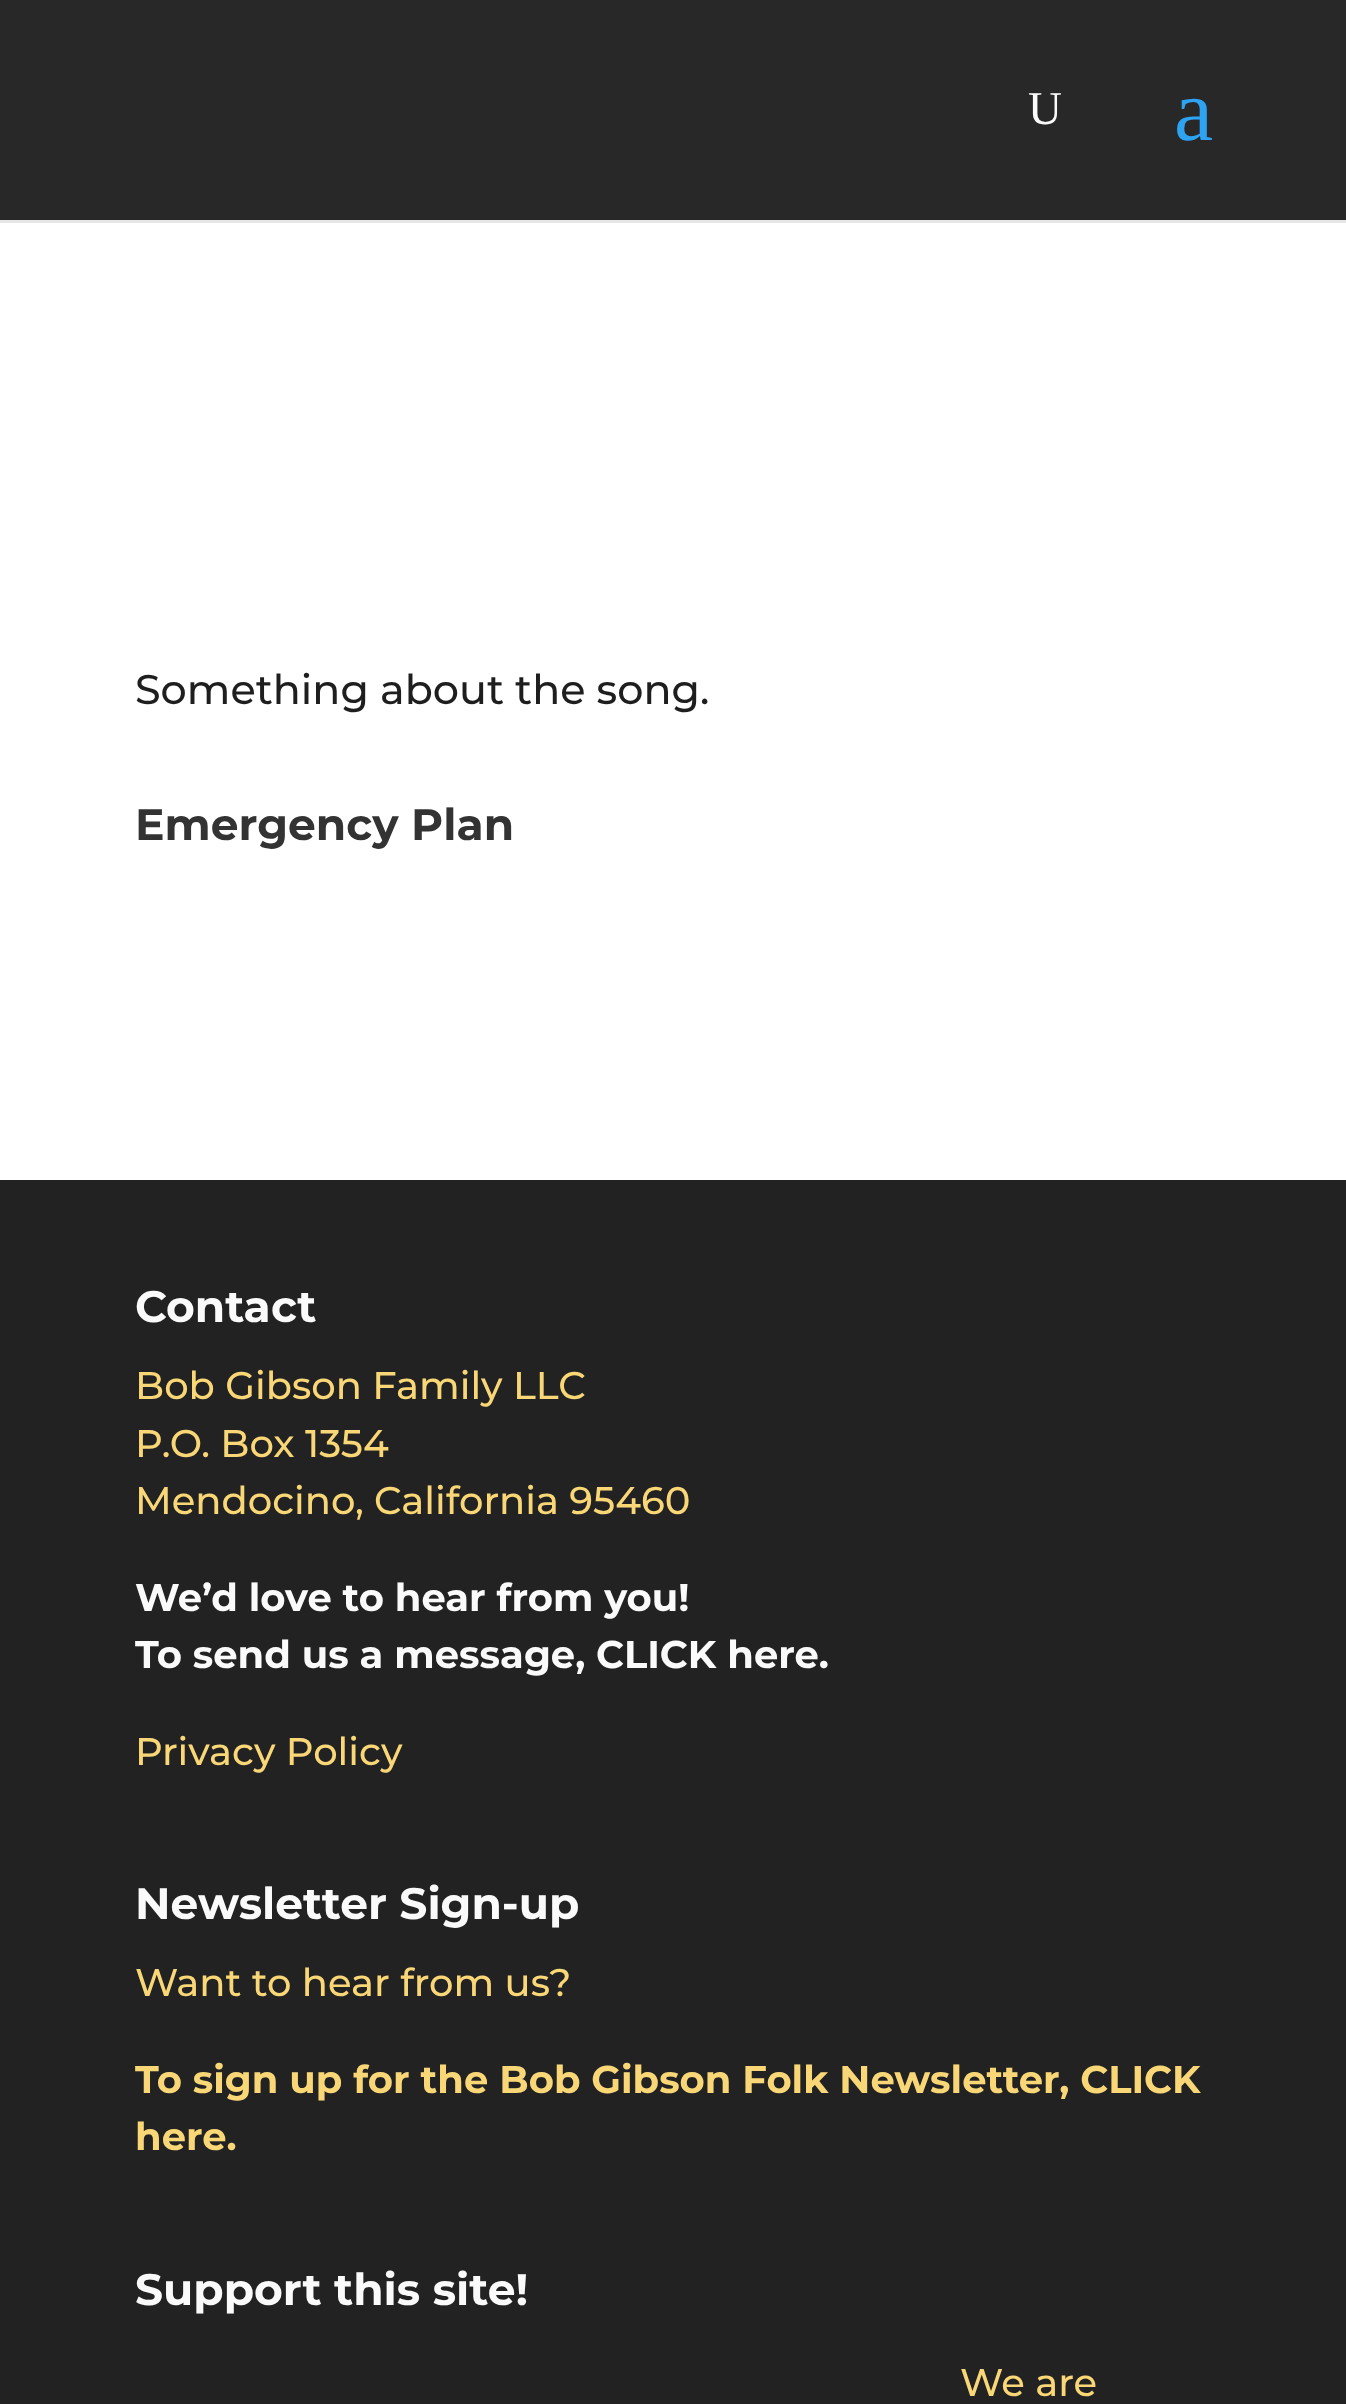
(async () => {
  const canvas = document.querySelector("canvas");
  canvas.width = 1346;
  canvas.height = 2404;
  const ctx = canvas.getContext("2d");
  ctx.miterLimit = 4;
  ctx.fontKerning = "normal";
  let path;

  ctx.fillStyle = "#222222";
  ctx.fillRect(0, 0, 1346, 2404);
  ctx.fillStyle = "#e6e6e6";
  path = new Path2D("M0 220V223H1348V3V220Z");
  ctx.fill(path);
  ctx.fillStyle = "#282828";
  ctx.fillRect(0, 0, 1346, 220);
  ctx.fillStyle = "#ffffff";
  ctx.fillRect(0, 223, 1346, 957);
  ctx.font = "47px Liberation Serif";
  ctx.fillStyle = "#fafafa";
  ctx.fillText("U", 1028, 124);
  ctx.font = "88px Liberation Serif";
  ctx.fillStyle = "#2ea3f2";
  ctx.fillText("a", 1174, 140);
  ctx.font = "500 41.25px Montserrat";
  ctx.fillStyle = "#1e1e1e";
  ctx.fillText("Something about the song.", 135, 704);
  ctx.font = "bold 44px Montserrat";
  ctx.fillStyle = "#333333";
  ctx.fillText("Emergency Plan", 135, 840);
  ctx.fillStyle = "#fafafa";
  ctx.fillText("Contact", 135, 1322);
  ctx.font = "500 38.5px Montserrat";
  ctx.fillStyle = "#f9d777";
  for (const [text, x, y] of [
    ["Bob Gibson Family LLC", 135, 1399],
    ["P.O. Box 1354", 135, 1457],
    ["Mendocino, California 95460", 135, 1514],
  ]) {
    ctx.fillText(text, x, y);
  }
  ctx.font = "bold 38.5px Montserrat";
  ctx.fillStyle = "#fafafa";
  ctx.fillText("We’d love to hear from you!", 135, 1611);
  ctx.fillText("To send us a message, CLICK here.", 135, 1668);
  ctx.font = "500 38.5px Montserrat";
  ctx.fillStyle = "#f9d777";
  ctx.fillText("Privacy Policy", 135, 1765);
  ctx.font = "bold 44px Montserrat";
  ctx.fillStyle = "#fafafa";
  ctx.fillText("Newsletter Sign-up", 135, 1919);
  ctx.font = "500 38.5px Montserrat";
  ctx.fillStyle = "#f9d777";
  ctx.fillText("Want to hear from us?", 135, 1996);
  ctx.font = "bold 38.5px Montserrat";
  ctx.fillText("To sign up for the Bob Gibson Folk Newsletter, CLICK", 135, 2093);
  ctx.fillText("here.", 135, 2150);
  ctx.font = "bold 44px Montserrat";
  ctx.fillStyle = "#fafafa";
  ctx.fillText("Support this site!", 135, 2305);
  ctx.font = "500 38.5px Montserrat";
  ctx.fillStyle = "#f9d777";
  ctx.fillText("We are", 960, 2396);
})();
